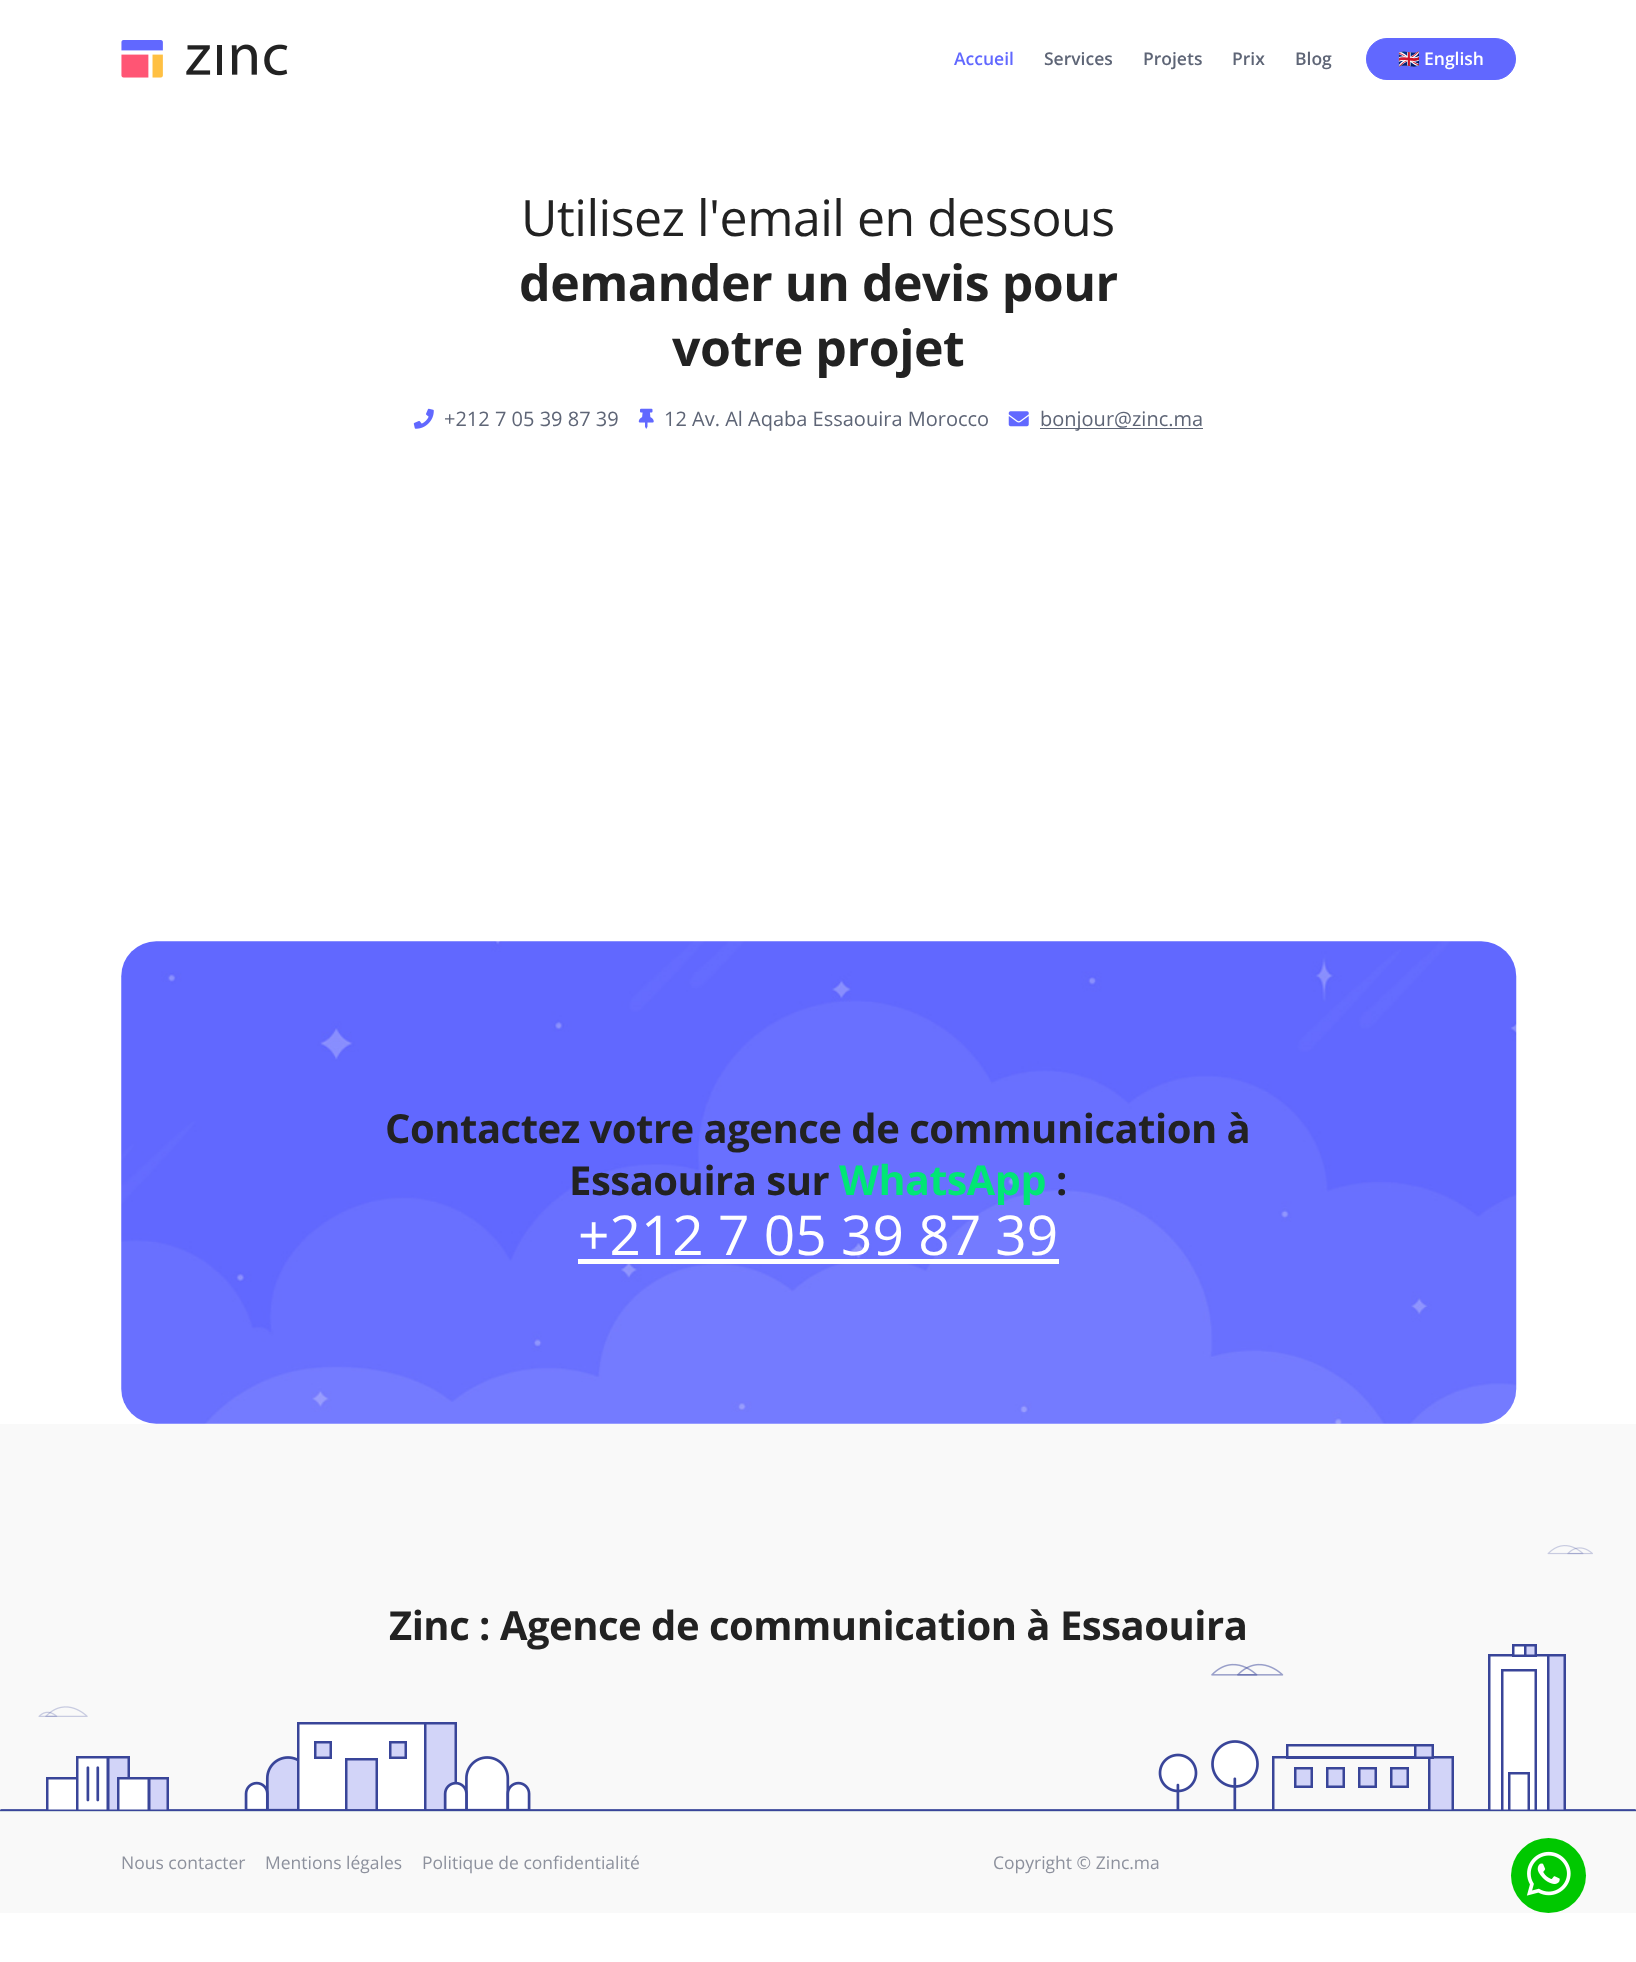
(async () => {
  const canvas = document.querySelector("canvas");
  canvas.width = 1636;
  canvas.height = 1962;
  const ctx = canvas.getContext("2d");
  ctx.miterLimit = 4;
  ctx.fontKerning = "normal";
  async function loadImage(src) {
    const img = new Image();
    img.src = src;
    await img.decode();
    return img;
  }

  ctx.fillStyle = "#ffffff";
  ctx.fillRect(0, 0, 1636, 1962);
  ctx.drawImage(await loadImage("img/1.png"), 121, 40, 167, 38);
  ctx.fillStyle = "#6168ff";
  ctx.beginPath();
  ctx.roundRect(1366.5, 38.5, 149, 41, 20.5);
  ctx.fill();
  ctx.strokeStyle = "#6168ff";
  ctx.stroke();
  ctx.drawImage(await loadImage("img/2.png"), 413, 408, 21, 21);
  ctx.drawImage(await loadImage("img/3.png"), 638, 408, 16, 21);
  ctx.drawImage(await loadImage("img/4.png"), 1008, 411, 21, 16);
  ctx.fillStyle = "#5e6576";
  ctx.fillRect(1040, 428, 163, 1);
  ctx.drawImage(await loadImage("img/5.png"), 121, 941, 1396, 483);
  ctx.fillStyle = "#ffffff";
  ctx.fillRect(578, 1259, 481, 5);
  ctx.fillStyle = "#f9f9f9";
  ctx.fillRect(0, 1424, 1636, 387);
  ctx.drawImage(await loadImage("img/6.png"), 0, 1545, 1636, 266);
  ctx.fillRect(0, 1812, 1636, 101);
  ctx.fillStyle = "#d0dae2";
  ctx.fillRect(0, 1811, 1636, 1);
  ctx.fillStyle = "#00c800";
  ctx.beginPath();
  ctx.arc(1548.5, 1875.5, 37.5, 0, Math.PI * 2);
  ctx.fill();
  ctx.drawImage(await loadImage("img/7.png"), 1526, 1851, 45, 45);
  ctx.font = "600 17.5px Open Sans";
  ctx.fillStyle = "#6168ff";
  ctx.fillText("Accueil", 954, 65);
  ctx.fillStyle = "#5e6576";
  for (const [text, x, y] of [
    ["Services", 1044, 65],
    ["Projets", 1143, 65],
    ["Prix", 1232, 65],
    ["Blog", 1295, 65],
  ]) {
    ctx.fillText(text, x, y);
  }
  ctx.font = "bold 17.5px Noto Color Emoji";
  ctx.fillStyle = "#ffffff";
  ctx.fillText("🇬🇧", 1398, 65);
  ctx.font = "600 17.5px Open Sans";
  ctx.fillText("English", 1424, 65);
  ctx.letterSpacing = "-0.5px";
  ctx.font = "50px Open Sans";
  ctx.fillStyle = "#222222";
  ctx.fillText("Utilisez l'email en dessous", 521, 236);
  ctx.font = "bold 50px Open Sans";
  ctx.fillText("demander un devis pour", 519, 301);
  ctx.fillText("votre projet", 672, 366);
  ctx.letterSpacing = "0px";
  ctx.font = "20px Open Sans";
  ctx.fillStyle = "#5e6576";
  for (const [text, x, y] of [
    ["+212 7 05 39 87 39", 444, 426],
    ["12 Av. Al Aqaba Essaouira Morocco", 664, 426],
    ["bonjour@zinc.ma", 1040, 426],
  ]) {
    ctx.fillText(text, x, y);
  }
  ctx.letterSpacing = "-0.5px";
  ctx.font = "bold 40px Open Sans";
  ctx.fillStyle = "#222222";
  ctx.fillText("Contactez votre agence de communication à", 385, 1143);
  ctx.fillText("Essaouira sur", 569, 1195);
  ctx.font = "bold 41.25px Open Sans";
  ctx.fillStyle = "#01e675";
  ctx.fillText("WhatsApp", 839, 1195);
  ctx.font = "bold 40px Open Sans";
  ctx.fillStyle = "#222222";
  ctx.fillText(":", 1056, 1195);
  ctx.letterSpacing = "0px";
  ctx.font = "55px Open Sans";
  ctx.fillStyle = "#ffffff";
  ctx.fillText("+212 7 05 39 87 39", 578, 1255);
  ctx.letterSpacing = "-0.5px";
  ctx.font = "bold 40px Open Sans";
  ctx.fillStyle = "#222222";
  ctx.fillText("Zinc : Agence de communication à Essaouira", 389, 1640);
  ctx.letterSpacing = "0px";
  ctx.font = "17.5px Open Sans";
  ctx.fillStyle = "#8d919d";
  for (const [text, x, y] of [
    ["Nous contacter", 121, 1869],
    ["Mentions légales", 265, 1869],
    ["Politique de confidentialité", 422, 1869],
    ["Copyright © Zinc.ma", 993, 1869],
  ]) {
    ctx.fillText(text, x, y);
  }
})();
